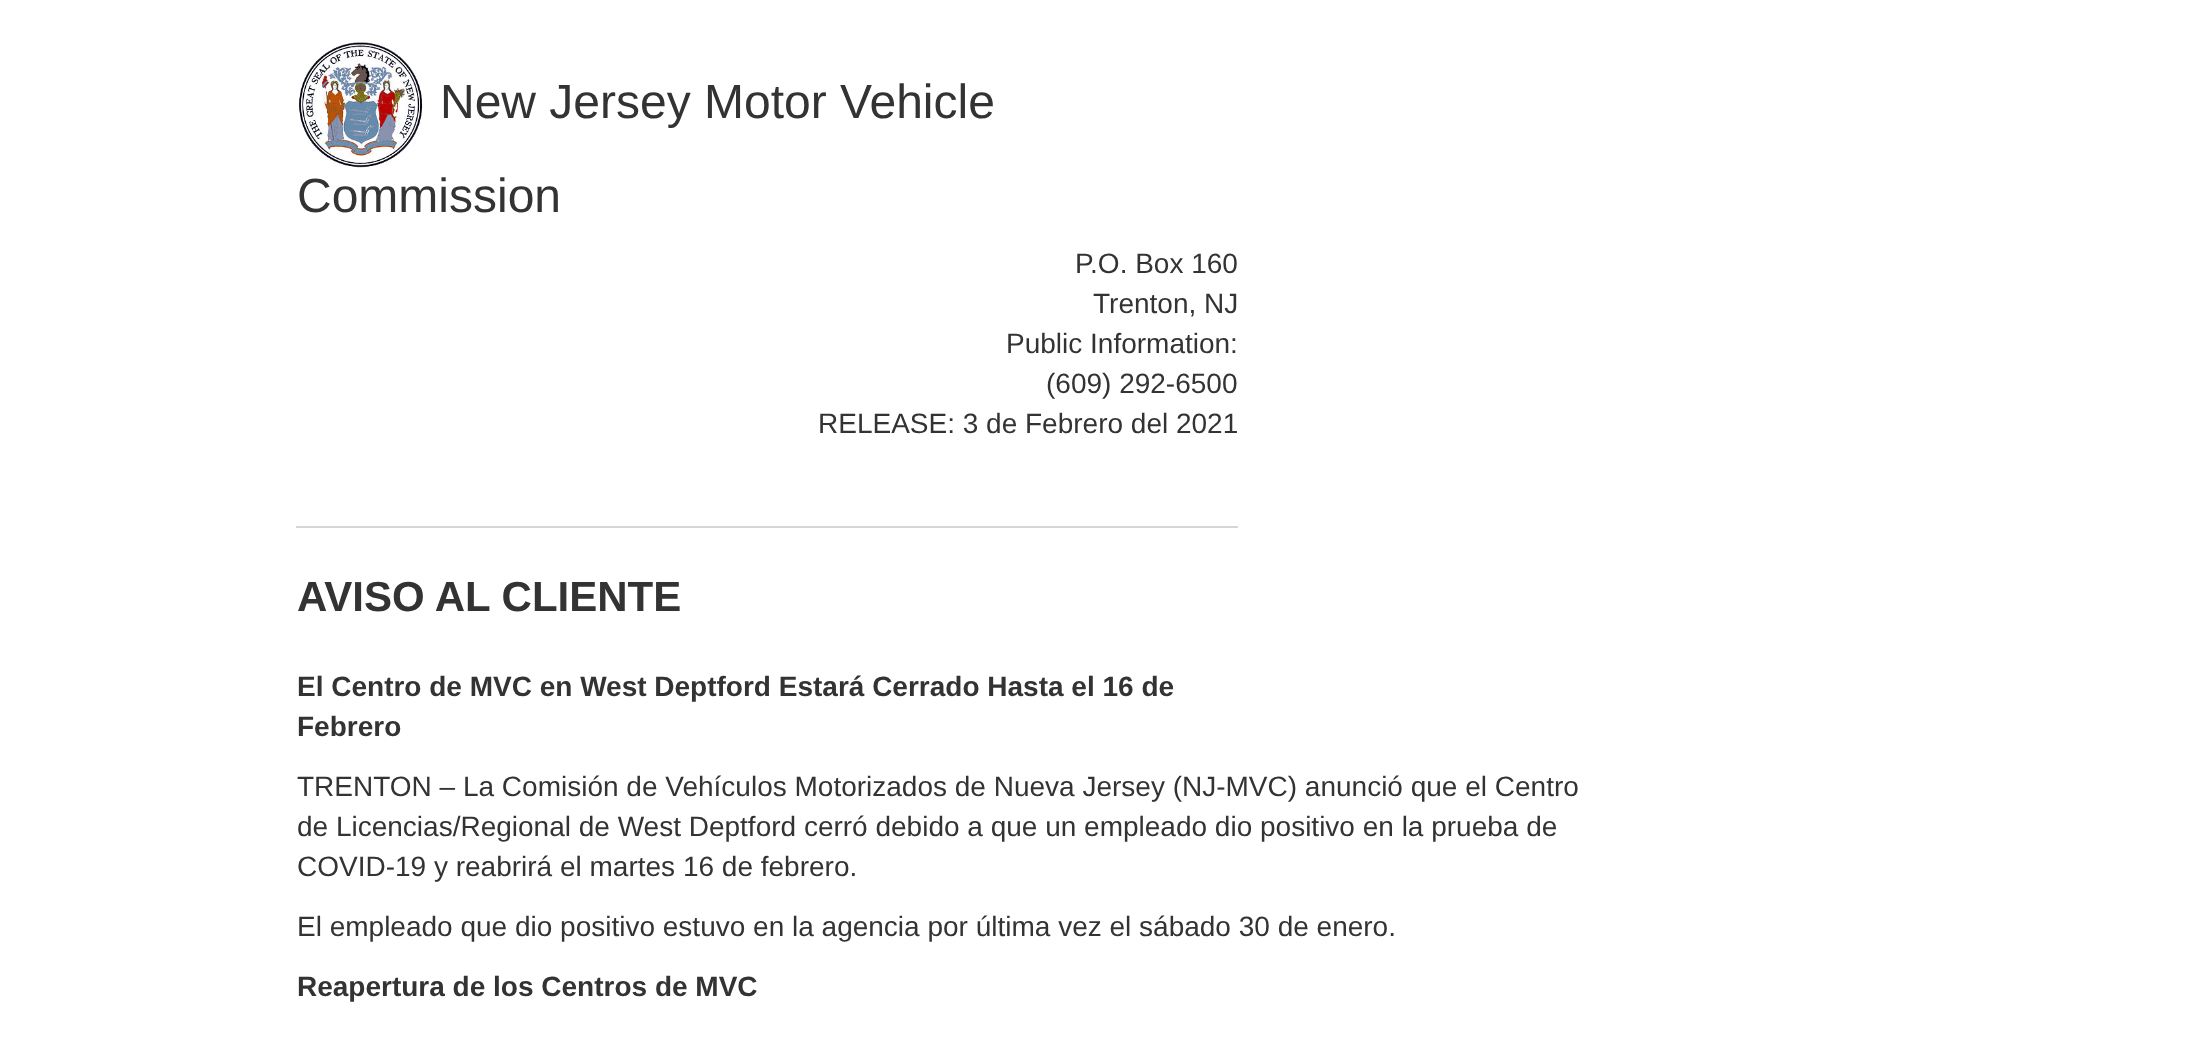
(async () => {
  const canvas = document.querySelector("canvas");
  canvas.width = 2202;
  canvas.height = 1048;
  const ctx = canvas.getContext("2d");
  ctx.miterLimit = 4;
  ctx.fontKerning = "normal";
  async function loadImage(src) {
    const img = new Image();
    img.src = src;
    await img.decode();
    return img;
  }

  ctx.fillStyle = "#ffffff";
  ctx.fillRect(0, 0, 2202, 1048);
  ctx.drawImage(await loadImage("img/1.png"), 299, 42, 124, 126);
  ctx.fillStyle = "#d6d6d6";
  ctx.fillRect(296, 526, 942, 2);
  ctx.font = "48px Liberation Sans";
  ctx.fillStyle = "#333333";
  ctx.fillText("New Jersey Motor Vehicle", 440, 118);
  ctx.fillText("Commission", 297, 212);
  ctx.font = "28px Liberation Sans";
  for (const [text, x, y] of [
    ["P.O. Box 160", 1075, 273],
    ["Trenton, NJ", 1093, 313],
    ["Public Information:", 1006, 353],
    ["(609) 292-6500", 1046, 393],
    ["RELEASE: 3 de Febrero del 2021", 818, 433],
  ]) {
    ctx.fillText(text, x, y);
  }
  ctx.font = "bold 42px Liberation Sans";
  ctx.fillText("AVISO AL CLIENTE", 297, 611);
  ctx.font = "bold 28px Liberation Sans";
  ctx.fillText("El Centro de MVC en West Deptford Estará Cerrado Hasta el 16 de", 297, 696);
  ctx.fillText("Febrero", 297, 736);
  ctx.font = "28px Liberation Sans";
  for (const [text, x, y] of [
    ["TRENTON – La Comisión de Vehículos Motorizados de Nueva Jersey (NJ-MVC) anunció que el Centro", 297, 796],
    ["de Licencias/Regional de West Deptford cerró debido a que un empleado dio positivo en la prueba de", 297, 836],
    ["COVID-19 y reabrirá el martes 16 de febrero.", 297, 876],
    ["El empleado que dio positivo estuvo en la agencia por última vez el sábado 30 de enero.", 297, 936],
  ]) {
    ctx.fillText(text, x, y);
  }
  ctx.font = "bold 28px Liberation Sans";
  ctx.fillText("Reapertura de los Centros de MVC", 297, 996);
})();
